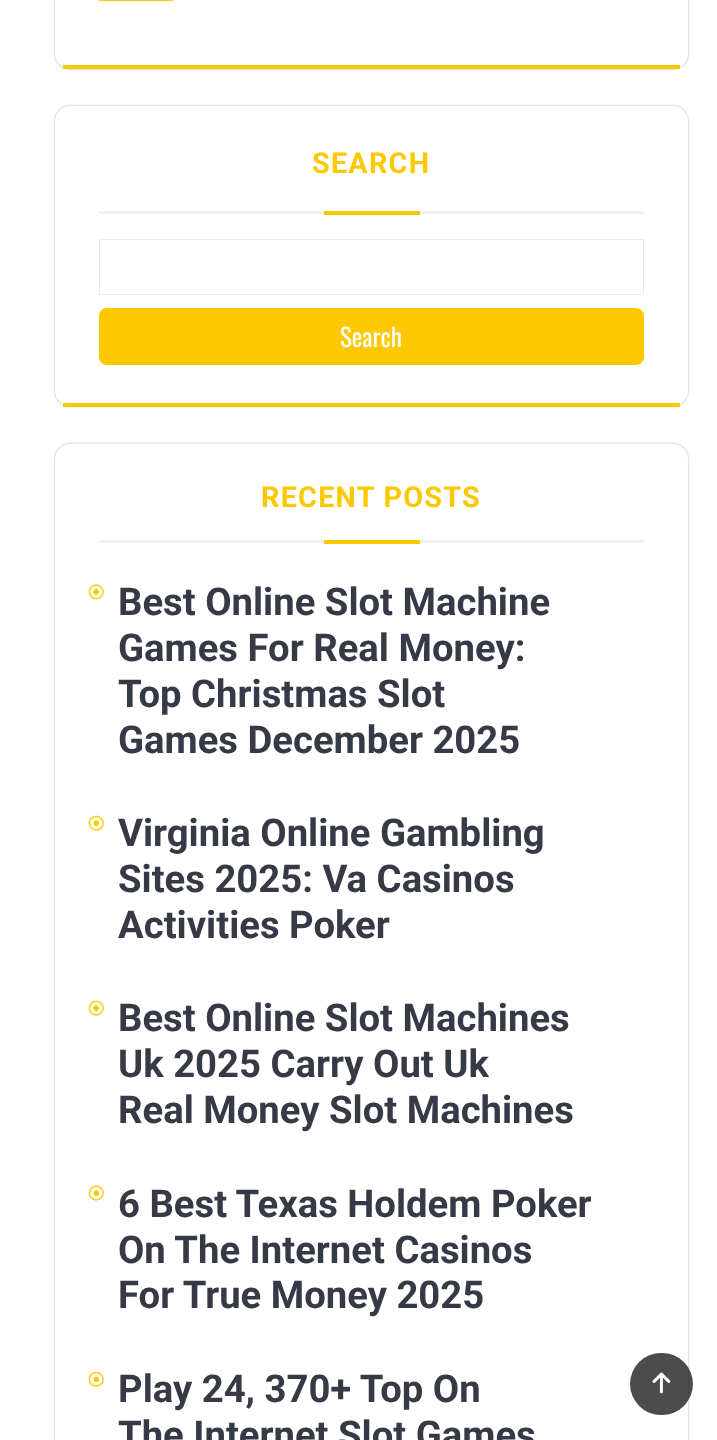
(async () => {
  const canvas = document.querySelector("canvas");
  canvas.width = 717;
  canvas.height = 1440;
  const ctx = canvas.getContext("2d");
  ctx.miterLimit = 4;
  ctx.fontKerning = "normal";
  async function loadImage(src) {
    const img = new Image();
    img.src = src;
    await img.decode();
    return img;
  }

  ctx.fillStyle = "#ffffff";
  ctx.fillRect(0, 0, 717, 1440);
  ctx.fillStyle = "#aaaaaa";
  ctx.filter = "blur(1px)";
  ctx.beginPath();
  ctx.roundRect(55, -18, 633, 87, 15);
  ctx.fill();
  ctx.filter = "none";
  ctx.fillStyle = "#ffffff";
  ctx.beginPath();
  ctx.roundRect(55, -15, 633, 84, 15);
  ctx.fill();
  ctx.fillStyle = "#fdc800";
  ctx.fillRect(63, 65, 617, 4);
  ctx.fillRect(99, 0, 74, 1);
  ctx.fillStyle = "#aaaaaa";
  ctx.filter = "blur(1px)";
  ctx.beginPath();
  ctx.roundRect(55, 106, 633, 300, 15);
  ctx.fill();
  ctx.filter = "none";
  ctx.fillStyle = "#ffffff";
  ctx.beginPath();
  ctx.roundRect(55, 106, 633, 300, 15);
  ctx.fill();
  for (const [x, y, w, h, color] of [
    [63, 403, 617, 4, "#fdc800"],
    [99, 211, 545, 3, "#f1f1f1"],
    [324, 211, 96, 4, "#fdc800"],
  ]) {
    ctx.fillStyle = color;
    ctx.fillRect(x, y, w, h);
  }
  ctx.strokeStyle = "#ebebeb";
  ctx.strokeRect(99.5, 239.5, 544, 55);
  ctx.beginPath();
  ctx.roundRect(99, 308, 545, 57, 8);
  ctx.fill();
  ctx.fillStyle = "#aaaaaa";
  ctx.filter = "blur(1px)";
  ctx.beginPath();
  ctx.roundRect(55, 444, 633, 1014, 15);
  ctx.fill();
  ctx.filter = "none";
  ctx.fillStyle = "#ffffff";
  ctx.beginPath();
  ctx.roundRect(55, 444, 633, 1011, 15);
  ctx.fill();
  ctx.fillStyle = "#f1f1f1";
  ctx.fillRect(99, 540, 545, 3);
  ctx.fillStyle = "#fdc800";
  ctx.fillRect(324, 540, 96, 4);
  ctx.drawImage(await loadImage("img/1.png"), 88, 584, 16, 16);
  ctx.drawImage(await loadImage("img/2.png"), 88, 815, 16, 16);
  ctx.drawImage(await loadImage("img/2.png"), 88, 1000, 16, 16);
  ctx.drawImage(await loadImage("img/2.png"), 88, 1185, 16, 16);
  ctx.drawImage(await loadImage("img/3.png"), 88, 1371, 16, 16);
  ctx.fillStyle = "rgba(0, 0, 0, 0.7)";
  ctx.beginPath();
  ctx.roundRect(630, 1353, 63, 62, 31);
  ctx.fill();
  ctx.drawImage(await loadImage("img/4.png"), 652, 1372, 19, 22);
  ctx.letterSpacing = "1.25px";
  ctx.font = "bold 28.75px Roboto";
  ctx.fillStyle = "#fdc800";
  ctx.fillText("SEARCH", 312, 173);
  ctx.letterSpacing = "0px";
  ctx.font = "25px Oswald";
  ctx.fillStyle = "#ffffff";
  ctx.fillText("Search", 340, 347);
  ctx.letterSpacing = "1.25px";
  ctx.font = "bold 28.75px Roboto";
  ctx.fillStyle = "#fdc800";
  ctx.fillText("RECENT POSTS", 261, 507);
  ctx.letterSpacing = "0px";
  ctx.font = "bold 38.25px Roboto";
  ctx.fillStyle = "#363a47";
  for (const [text, x, y] of [
    ["Best Online Slot Machine", 118, 615],
    ["Games For Real Money:", 118, 661],
    ["Top Christmas Slot", 118, 707],
    ["Games December 2025", 118, 753],
    ["Virginia Online Gambling", 118, 846],
    ["Sites 2025: Va Casinos", 118, 892],
    ["Activities Poker", 118, 938],
    ["Best Online Slot Machines", 118, 1031],
    ["Uk 2025 Carry Out Uk", 118, 1077],
    ["Real Money Slot Machines", 118, 1123],
    ["6 Best Texas Holdem Poker", 118, 1217],
    ["On The Internet Casinos", 118, 1263],
    ["For True Money 2025", 118, 1308],
    ["Play 24, 370+ Top On", 118, 1402],
    ["The Internet Slot Games", 118, 1448],
  ]) {
    ctx.fillText(text, x, y);
  }
})();
